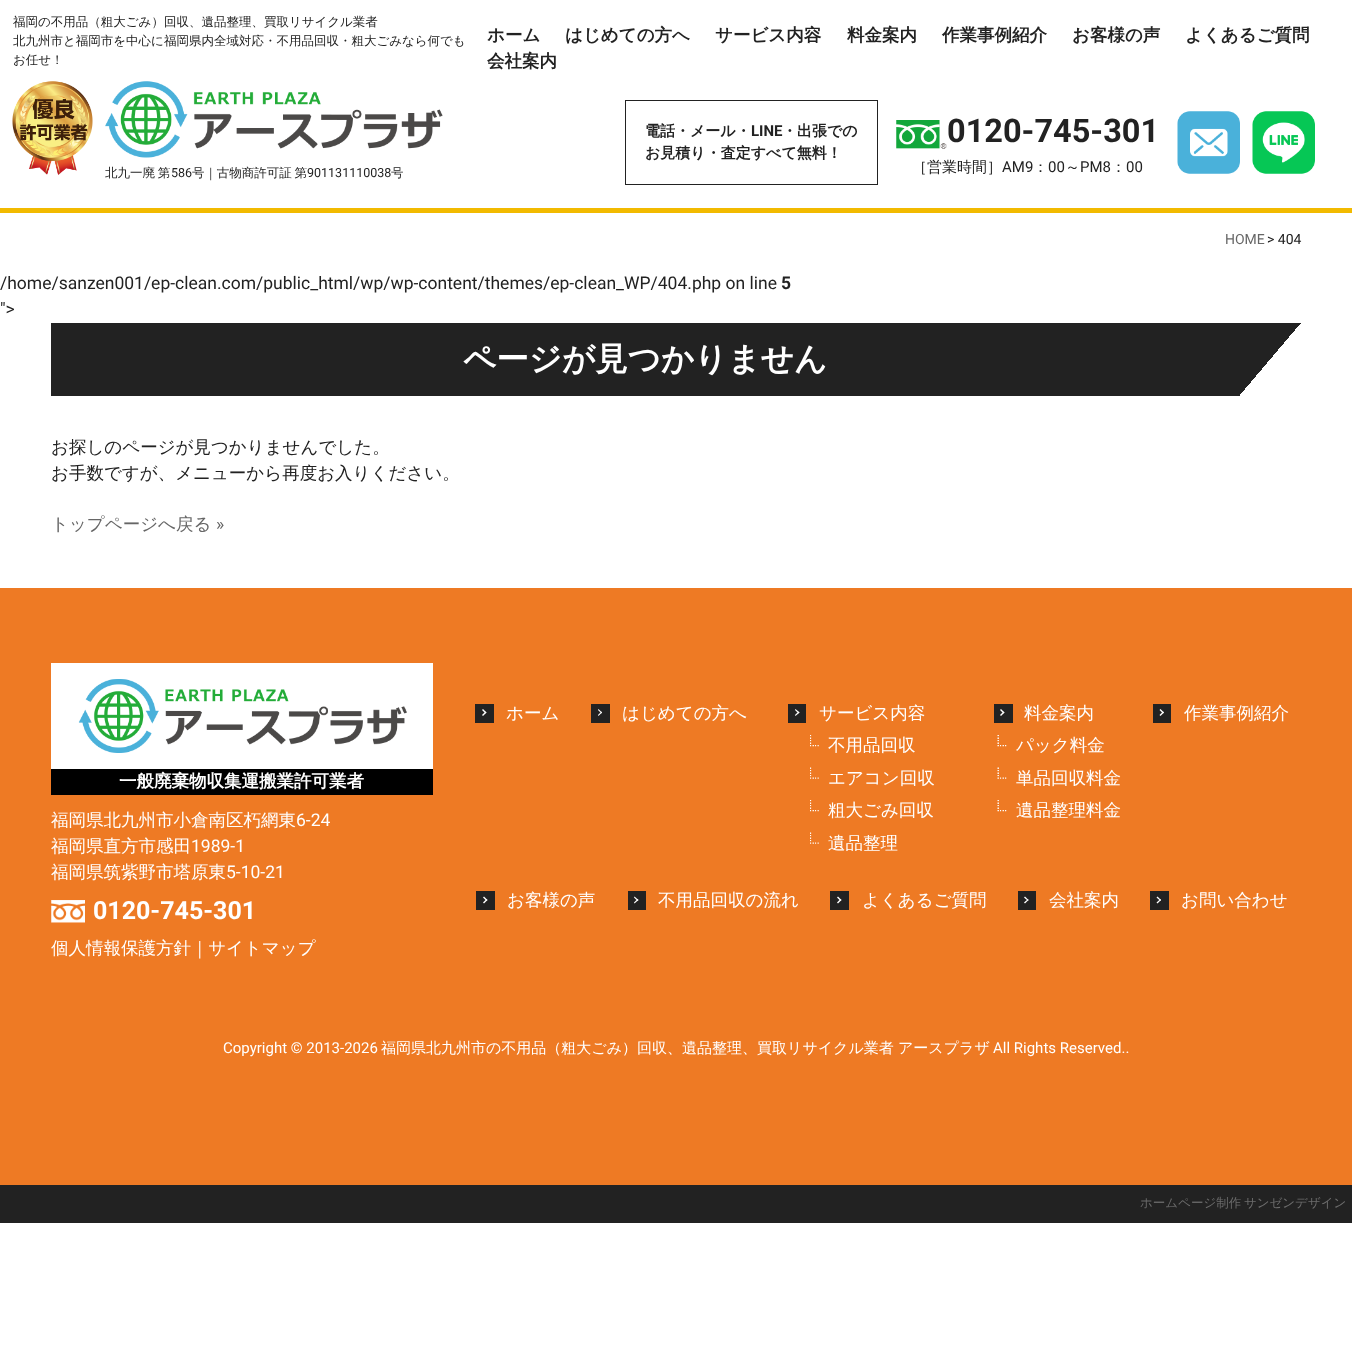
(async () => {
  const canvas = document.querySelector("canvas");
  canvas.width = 1352;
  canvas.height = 1352;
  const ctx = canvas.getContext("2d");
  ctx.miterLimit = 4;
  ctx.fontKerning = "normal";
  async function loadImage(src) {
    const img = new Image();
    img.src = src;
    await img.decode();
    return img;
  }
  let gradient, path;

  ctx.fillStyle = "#ffffff";
  ctx.fillRect(0, 0, 1352, 1352);
  ctx.fillStyle = "#f2ba00";
  ctx.fillRect(0, 208, 1352, 5);
  ctx.drawImage(await loadImage("img/1.png"), 12, 81, 81, 94);
  ctx.drawImage(await loadImage("img/2.png"), 105, 81, 338, 77);
  ctx.strokeStyle = "#222222";
  ctx.strokeRect(625.5, 100.5, 252, 84);
  ctx.drawImage(await loadImage("img/3.png"), 896, 120, 51, 29);
  ctx.drawImage(await loadImage("img/4.png"), 1177, 111, 63, 63);
  ctx.drawImage(await loadImage("img/5.png"), 1252, 111, 63, 63);
  ctx.fillStyle = "#222222";
  ctx.fillRect(51, 323, 1188, 73);
  gradient = ctx.createLinearGradient(1306, 390, 1234, 329);
  gradient.addColorStop(0.5, "#ffffff");
  gradient.addColorStop(0.5, "#222222");
  ctx.fillStyle = gradient;
  ctx.fillRect(1239, 323, 62, 73);
  ctx.fillStyle = "#ee7a24";
  ctx.fillRect(0, 588, 1352, 597);
  ctx.fillStyle = "#ffffff";
  ctx.fillRect(51, 663, 382, 106);
  ctx.drawImage(await loadImage("img/6.png"), 78, 679, 329, 74);
  ctx.fillStyle = "#000000";
  ctx.fillRect(51, 769, 382, 26);
  ctx.drawImage(await loadImage("img/7.png"), 51, 900, 34, 23);
  ctx.fillStyle = "#222222";
  ctx.fillRect(475, 704, 19, 19);
  ctx.fillStyle = "#ffffff";
  path = new Path2D("M483 709L486.5 712.5L485.5 713.5L482 710Z");
  ctx.fill(path);
  path = new Path2D("M485.5 711.5L486.5 712.5L483 716L482 715Z");
  ctx.fill(path);
  ctx.fillStyle = "#222222";
  ctx.fillRect(591, 704, 19, 19);
  ctx.fillStyle = "#ffffff";
  path = new Path2D("M598.5 709L602 712.5L601.5 713.5L598 710Z");
  ctx.fill(path);
  path = new Path2D("M601.5 711.5L602 712.5L598.5 716L598 715Z");
  ctx.fill(path);
  ctx.fillStyle = "#222222";
  ctx.fillRect(788, 704, 18, 19);
  ctx.fillStyle = "#ffffff";
  path = new Path2D("M795.5 709L799.5 712.5L798.5 713.5L795 710Z");
  ctx.fill(path);
  path = new Path2D("M798.5 711.5L799.5 712.5L795.5 716L795 715Z");
  ctx.fill(path);
  ctx.drawImage(await loadImage("img/8.png"), 810, 735, 9, 12);
  ctx.drawImage(await loadImage("img/9.png"), 810, 767, 9, 12);
  ctx.drawImage(await loadImage("img/8.png"), 810, 800, 9, 12);
  ctx.drawImage(await loadImage("img/9.png"), 810, 832, 9, 12);
  ctx.fillStyle = "#222222";
  ctx.fillRect(994, 704, 19, 19);
  ctx.fillStyle = "#ffffff";
  path = new Path2D("M1001 709L1004.5 712.5L1003.5 713.5L1000 710Z");
  ctx.fill(path);
  path = new Path2D("M1003.5 711.5L1004.5 712.5L1001 716L1000 715Z");
  ctx.fill(path);
  ctx.drawImage(await loadImage("img/10.png"), 997, 735, 10, 12);
  ctx.drawImage(await loadImage("img/11.png"), 997, 767, 10, 12);
  ctx.drawImage(await loadImage("img/10.png"), 997, 800, 10, 12);
  ctx.fillStyle = "#222222";
  ctx.fillRect(1153, 704, 18, 19);
  ctx.fillStyle = "#ffffff";
  path = new Path2D("M1160.5 709L1164 712.5L1163 713.5L1159.5 710Z");
  ctx.fill(path);
  path = new Path2D("M1163 711.5L1164 712.5L1160.5 716L1159.5 715Z");
  ctx.fill(path);
  ctx.fillStyle = "#222222";
  ctx.fillRect(476, 891, 19, 19);
  ctx.fillStyle = "#ffffff";
  path = new Path2D("M484 896.5L487.5 900L486.5 901L483 897.5Z");
  ctx.fill(path);
  path = new Path2D("M486.5 899L487.5 900L484 903.5L483 902.5Z");
  ctx.fill(path);
  ctx.fillStyle = "#222222";
  ctx.fillRect(628, 891, 18, 19);
  ctx.fillStyle = "#ffffff";
  path = new Path2D("M634.5 896.5L638.5 900L637.5 901L634 897.5Z");
  ctx.fill(path);
  path = new Path2D("M637.5 899L638.5 900L634.5 903.5L634 902.5Z");
  ctx.fill(path);
  ctx.fillStyle = "#222222";
  ctx.fillRect(830, 891, 19, 19);
  ctx.fillStyle = "#ffffff";
  path = new Path2D("M838 896.5L841.5 900L840.5 901L837 897.5Z");
  ctx.fill(path);
  path = new Path2D("M840.5 899L841.5 900L838 903.5L837 902.5Z");
  ctx.fill(path);
  ctx.fillStyle = "#222222";
  ctx.fillRect(1018, 891, 18, 19);
  ctx.fillStyle = "#ffffff";
  path = new Path2D("M1025 896.5L1028.5 900L1028 901L1024 897.5Z");
  ctx.fill(path);
  path = new Path2D("M1028 899L1028.5 900L1025 903.5L1024 902.5Z");
  ctx.fill(path);
  ctx.fillStyle = "#222222";
  ctx.fillRect(1150, 891, 19, 19);
  ctx.fillStyle = "#ffffff";
  path = new Path2D("M1157.5 896.5L1161 900L1160.5 901L1156.5 897.5Z");
  ctx.fill(path);
  path = new Path2D("M1160.5 899L1161 900L1157.5 903.5L1156.5 902.5Z");
  ctx.fill(path);
  ctx.fillStyle = "#222222";
  ctx.fillRect(0, 1185, 1352, 38);
  ctx.font = "500 12.5px WenQuanYi Zen Hei";
  for (const [text, x, y] of [
    ["福岡の不用品（粗大ごみ）回収、遺品整理、買取リサイクル業者", 13, 26],
    ["北九州市と福岡市を中心に福岡県内全域対応・不用品回収・粗大ごみなら何でも", 13, 45],
    ["お任せ！", 13, 64],
  ]) {
    ctx.fillText(text, x, y);
  }
  ctx.wordSpacing = "-1px";
  ctx.fillText("北九一廃 第", 105, 177);
  ctx.wordSpacing = "0px";
  ctx.font = "12.5px Roboto";
  ctx.fillText("586", 171, 177);
  ctx.wordSpacing = "-1px";
  ctx.font = "500 12.5px WenQuanYi Zen Hei";
  ctx.fillText("号｜古物商許可証 第", 192, 177);
  ctx.wordSpacing = "0px";
  ctx.font = "12.5px Roboto";
  ctx.fillText("901131110038", 307, 177);
  ctx.font = "500 12.5px WenQuanYi Zen Hei";
  ctx.fillText("号", 391, 177);
  ctx.font = "bold 17.5px WenQuanYi Zen Hei";
  for (const [text, x, y] of [
    ["ホーム", 487, 41],
    ["はじめての方へ", 565, 41],
    ["サービス内容", 715, 41],
    ["料金案内", 847, 41],
    ["作業事例紹介", 942, 41],
    ["お客様の声", 1072, 41],
    ["よくあるご質問", 1185, 41],
    ["会社案内", 487, 67],
  ]) {
    ctx.fillText(text, x, y);
  }
  ctx.font = "bold 15px WenQuanYi Zen Hei";
  ctx.fillText("電話・メール・", 645, 136);
  ctx.font = "bold 15px Roboto";
  ctx.fillText("LINE", 751, 136);
  ctx.font = "bold 15px WenQuanYi Zen Hei";
  ctx.fillText("・出張での", 782, 136);
  ctx.fillText("お見積り・査定すべて無料！", 645, 158);
  ctx.font = "bold 32.5px Roboto";
  ctx.fillText("0120-745-301", 947, 142);
  ctx.font = "500 15px WenQuanYi Zen Hei";
  ctx.fillText("［営業時間］", 912, 172);
  ctx.font = "15px Roboto";
  ctx.fillText("AM9", 1002, 172);
  ctx.font = "500 15px WenQuanYi Zen Hei";
  ctx.fillText("：", 1033, 172);
  ctx.font = "15px Roboto";
  ctx.fillText("00", 1048, 172);
  ctx.font = "500 15px WenQuanYi Zen Hei";
  ctx.fillText("～", 1065, 172);
  ctx.font = "15px Roboto";
  ctx.fillText("PM8", 1080, 172);
  ctx.font = "500 15px WenQuanYi Zen Hei";
  ctx.fillText("：", 1111, 172);
  ctx.font = "15px Roboto";
  ctx.fillText("00", 1126, 172);
  ctx.font = "14px Roboto";
  ctx.fillStyle = "#666666";
  ctx.fillText("HOME", 1225, 244);
  ctx.fillStyle = "#222222";
  ctx.fillText("> 404", 1267, 244);
  ctx.font = "17.5px Roboto";
  ctx.fillText("/home/sanzen001/ep-clean.com/public_html/wp/wp-content/themes/ep-clean_WP/404.php on line", 0, 289);
  ctx.font = "bold 17.5px Roboto";
  ctx.fillText("5", 781, 289);
  ctx.font = "17.5px Roboto";
  ctx.fillText("\">", 0, 315);
  ctx.font = "bold 32.5px WenQuanYi Zen Hei";
  ctx.fillStyle = "#ffffff";
  ctx.fillText("ページが見つかりません", 463, 370);
  ctx.font = "500 17.5px WenQuanYi Zen Hei";
  ctx.fillStyle = "#222222";
  ctx.fillText("お探しのページが見つかりませんでした。", 51, 453);
  ctx.fillText("お手数ですが、メニューから再度お入りください。", 51, 479);
  ctx.fillStyle = "#666666";
  ctx.fillText("トップページへ戻る", 51, 530);
  ctx.font = "17.5px Roboto";
  ctx.fillText("»", 216, 530);
  ctx.font = "bold 17.5px WenQuanYi Zen Hei";
  ctx.fillStyle = "#ffffff";
  ctx.fillText("一般廃棄物収集運搬業許可業者", 119, 787);
  ctx.font = "500 17.5px WenQuanYi Zen Hei";
  ctx.fillText("福岡県北九州市小倉南区朽網東", 51, 826);
  ctx.font = "17.5px Roboto";
  ctx.fillText("6-24", 296, 826);
  ctx.font = "500 17.5px WenQuanYi Zen Hei";
  ctx.fillText("福岡県直方市感田", 51, 852);
  ctx.font = "17.5px Roboto";
  ctx.fillText("1989-1", 191, 852);
  ctx.font = "500 17.5px WenQuanYi Zen Hei";
  ctx.fillText("福岡県筑紫野市塔原東", 51, 878);
  ctx.font = "17.5px Roboto";
  ctx.fillText("5-10-21", 226, 878);
  ctx.font = "bold 25px Roboto";
  ctx.fillText("0120-745-301", 93, 919);
  ctx.font = "500 17.5px WenQuanYi Zen Hei";
  for (const [text, x, y] of [
    ["個人情報保護方針｜サイトマップ", 51, 954],
    ["ホーム", 506, 719],
    ["はじめての方へ", 622, 719],
    ["サービス内容", 819, 719],
    ["不用品回収", 828, 751],
    ["エアコン回収", 828, 784],
    ["粗大ごみ回収", 828, 816],
    ["遺品整理", 828, 849],
    ["料金案内", 1024, 719],
    ["パック料金", 1016, 751],
    ["単品回収料金", 1016, 784],
    ["遺品整理料金", 1016, 816],
    ["作業事例紹介", 1184, 719],
    ["お客様の声", 507, 906],
    ["不用品回収の流れ", 658, 906],
    ["よくあるご質問", 862, 906],
    ["会社案内", 1049, 906],
    ["お問い合わせ", 1181, 906],
  ]) {
    ctx.fillText(text, x, y);
  }
  ctx.font = "15px Roboto";
  ctx.fillText("Copyright © 2013-2026", 223, 1053);
  ctx.font = "500 15px WenQuanYi Zen Hei";
  ctx.fillText("福岡県北九州市の不用品（粗大ごみ）回収、遺品整理、買取リサイクル業者", 381, 1053);
  ctx.fillText("アースプラザ", 898, 1053);
  ctx.font = "15px Roboto";
  ctx.fillText("All Rights Reserved..", 993, 1053);
  ctx.wordSpacing = "-1px";
  ctx.font = "500 12.5px WenQuanYi Zen Hei";
  ctx.fillStyle = "#6c6c6c";
  ctx.fillText("ホームページ制作 サンゼンデザイン", 1140, 1207);
})();
